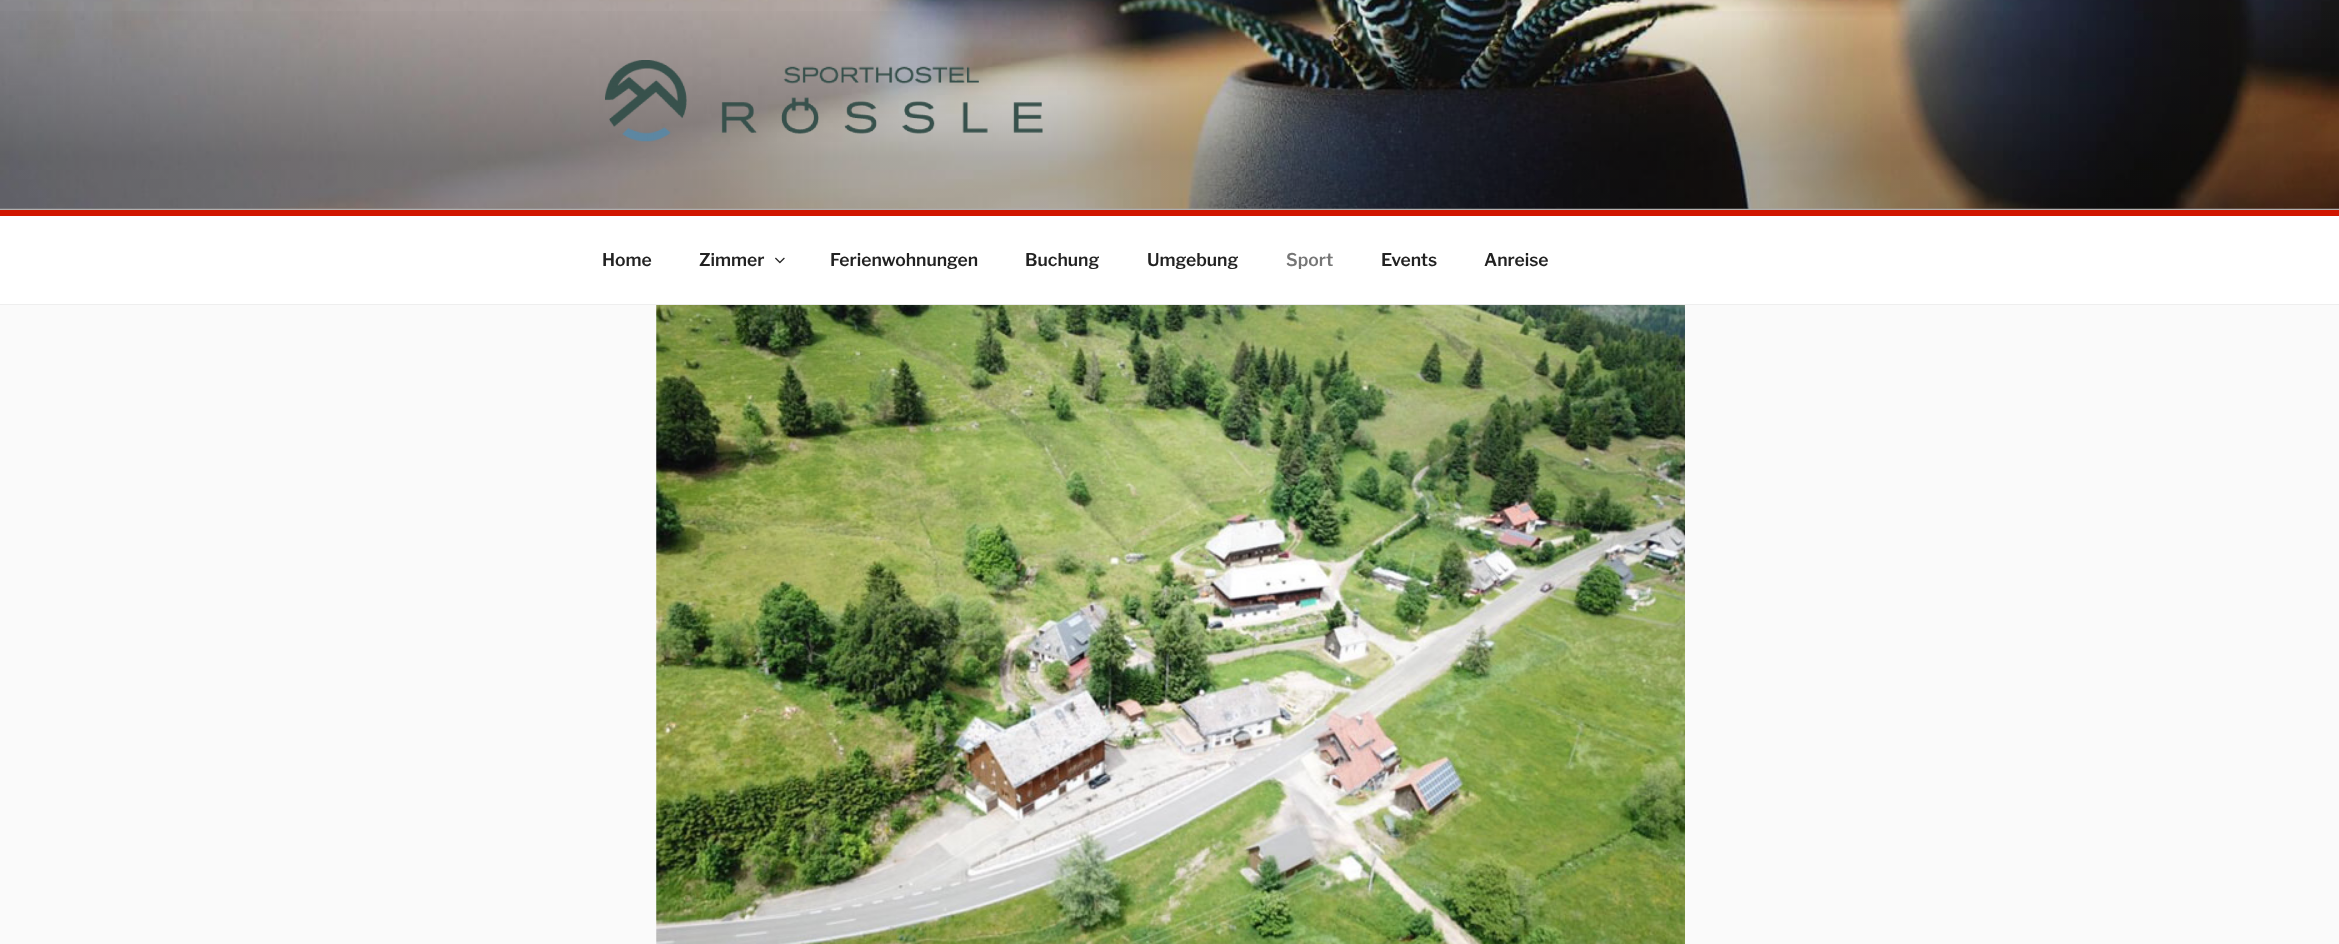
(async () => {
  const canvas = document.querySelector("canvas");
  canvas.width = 2339;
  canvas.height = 944;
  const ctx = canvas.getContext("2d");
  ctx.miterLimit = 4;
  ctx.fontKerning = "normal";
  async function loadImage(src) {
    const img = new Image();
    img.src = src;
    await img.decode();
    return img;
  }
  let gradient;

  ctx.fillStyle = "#fafafa";
  ctx.fillRect(0, 0, 2339, 944);
  ctx.drawImage(await loadImage("img/1.png"), 0, 0, 2339, 209);
  gradient = ctx.createLinearGradient(1170, 0, 1170, 210);
  gradient.addColorStop(0, "rgba(0, 0, 0, 0)");
  gradient.addColorStop(0.75, "rgba(0, 0, 0, 0.3)");
  gradient.addColorStop(1, "rgba(0, 0, 0, 0.3)");
  ctx.fillStyle = gradient;
  ctx.fillRect(0, 11, 2339, 199);
  ctx.drawImage(await loadImage("img/2.png"), 605, 60, 438, 82);
  for (const [x, y, w, h, color] of [
    [0, 216, 2339, 88, "#ffffff"],
    [0, 210, 2339, 6, "#d11600"],
    [0, 304, 2339, 1, "#eeeeee"],
  ]) {
    ctx.fillStyle = color;
    ctx.fillRect(x, y, w, h);
  }
  ctx.drawImage(await loadImage("img/3.png"), 775, 257, 10, 7);
  ctx.drawImage(await loadImage("img/4.png"), 656, 305, 1029, 639);
  ctx.font = "100 17.5px Libre Franklin";
  ctx.fillStyle = "#222222";
  for (const [text, x, y] of [
    ["Home", 602, 266],
    ["Zimmer", 699, 266],
    ["Ferienwohnungen", 830, 266],
    ["Buchung", 1025, 266],
    ["Umgebung", 1147, 266],
  ]) {
    ctx.fillText(text, x, y);
  }
  ctx.fillStyle = "#767676";
  ctx.fillText("Sport", 1286, 266);
  ctx.fillStyle = "#222222";
  ctx.fillText("Events", 1381, 266);
  ctx.fillText("Anreise", 1484, 266);
})();
